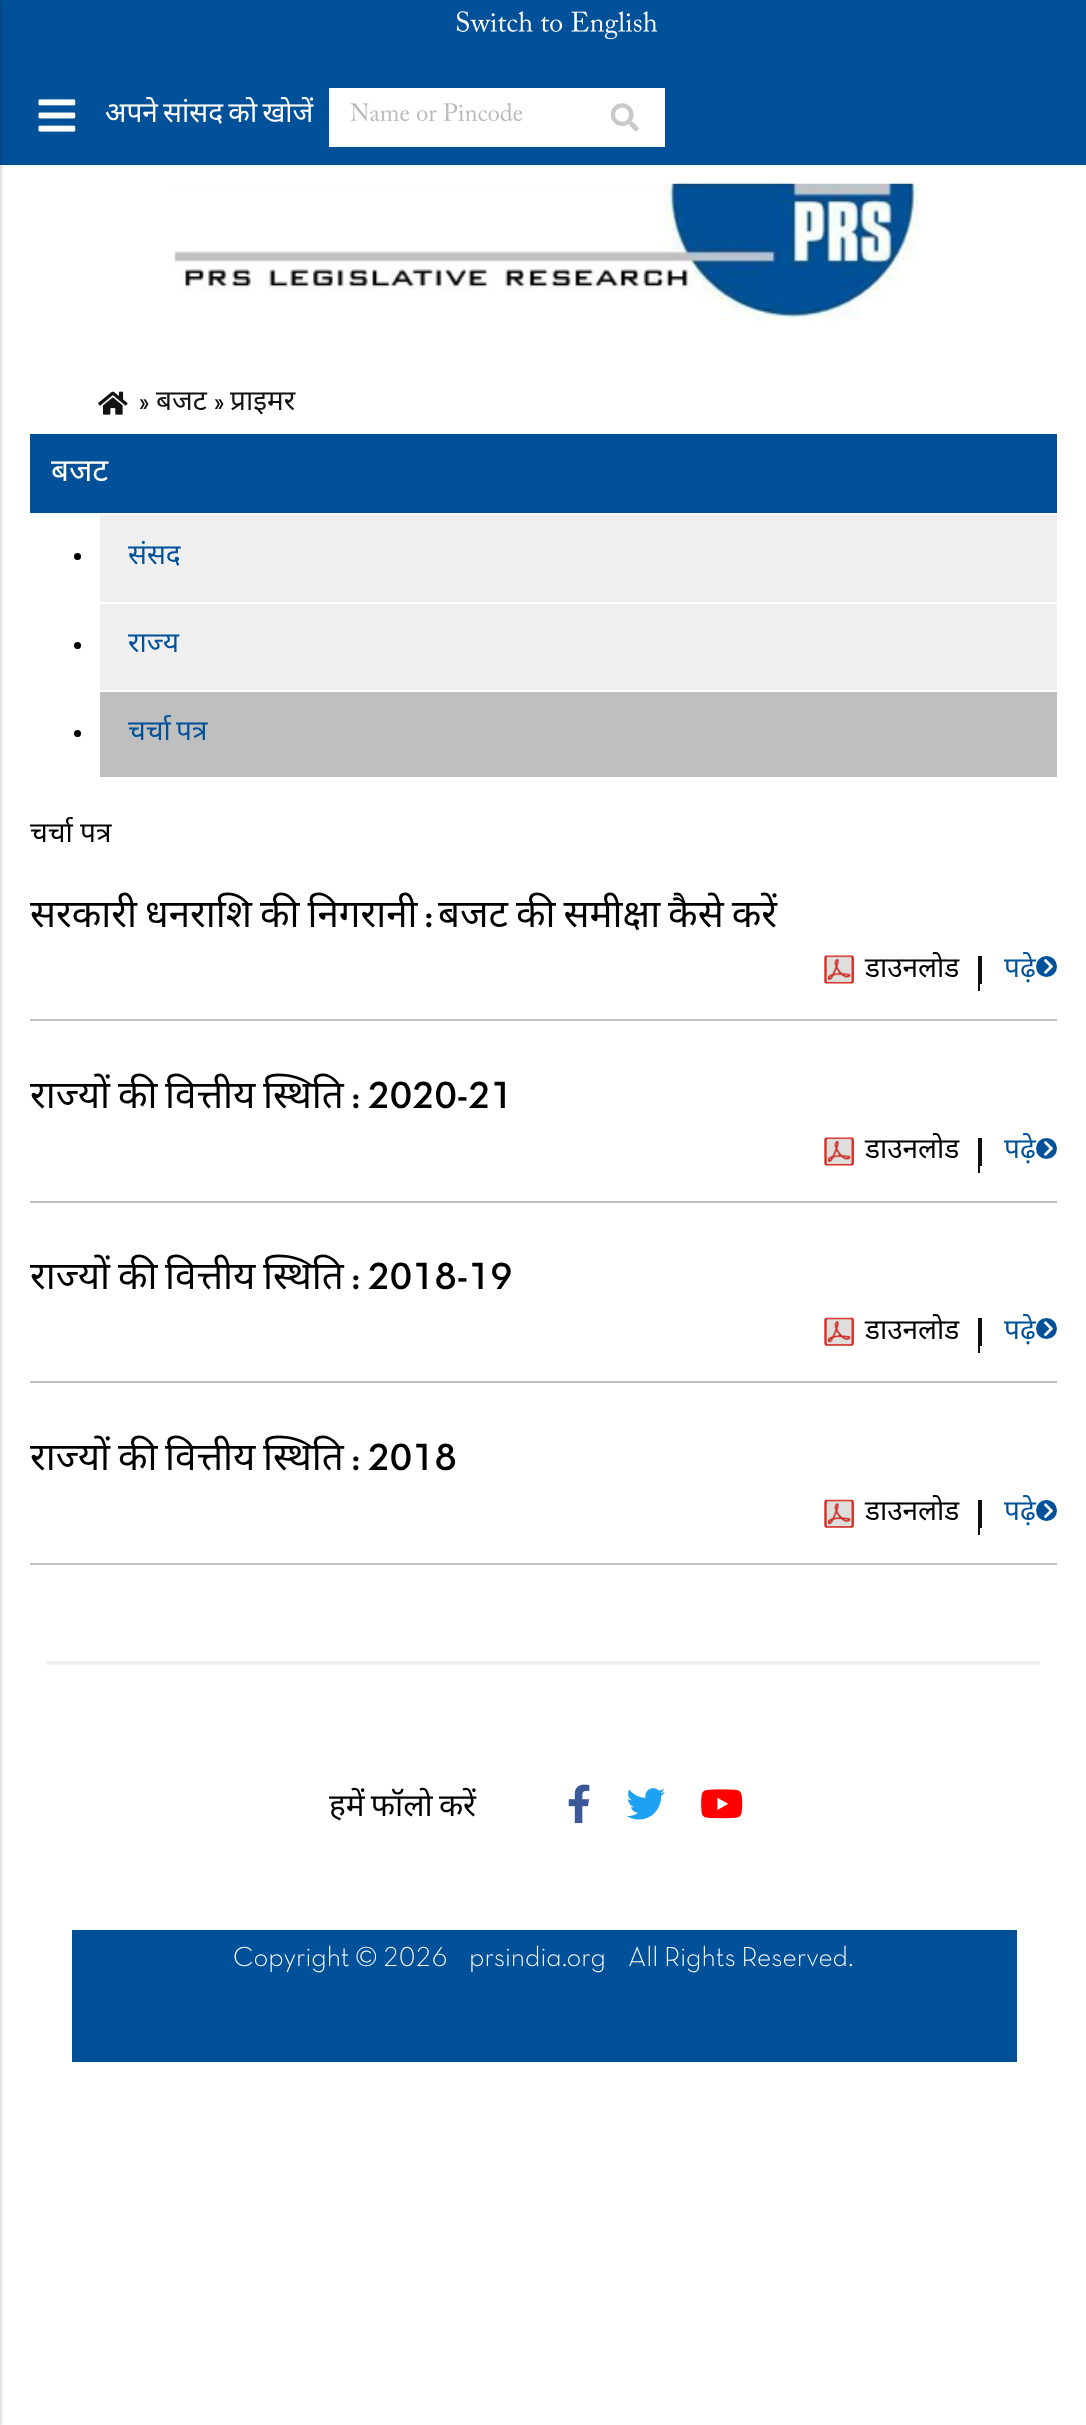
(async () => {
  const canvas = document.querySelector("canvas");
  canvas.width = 1086;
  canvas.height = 2425;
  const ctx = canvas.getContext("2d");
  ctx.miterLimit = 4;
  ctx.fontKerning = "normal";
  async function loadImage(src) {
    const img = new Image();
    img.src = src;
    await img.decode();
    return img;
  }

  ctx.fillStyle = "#ffffff";
  ctx.fillRect(0, 0, 1086, 2425);
  ctx.fillStyle = "#01519a";
  ctx.fillRect(0, 0, 1086, 165);
  ctx.drawImage(await loadImage("img/1.png"), 456, 11, 202, 29);
  ctx.fillStyle = "rgba(0, 0, 0, 0.3)";
  ctx.filter = "blur(2.5px)";
  ctx.beginPath();
  ctx.rect(-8, 0, 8, 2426);
  ctx.fill();
  ctx.filter = "none";
  ctx.drawImage(await loadImage("img/2.png"), 38, 99, 38, 33);
  ctx.fillStyle = "#ffffff";
  ctx.fillRect(329, 88, 336, 59);
  ctx.drawImage(await loadImage("img/3.png"), 350, 103, 173, 18);
  ctx.drawImage(await loadImage("img/4.png"), 610, 103, 29, 29);
  ctx.drawImage(await loadImage("img/5.png"), 174, 183, 746, 138);
  ctx.drawImage(await loadImage("img/6.png"), 98, 391, 30, 24);
  ctx.fillStyle = "#01519a";
  ctx.fillRect(30, 434, 1027, 79);
  ctx.fillStyle = "#000000";
  ctx.beginPath();
  ctx.arc(77.5, 556.5, 3.5, 0, Math.PI * 2);
  ctx.fill();
  ctx.fillStyle = "#efefef";
  ctx.fillRect(100, 515, 957, 87);
  ctx.fillStyle = "#000000";
  ctx.beginPath();
  ctx.arc(77.5, 645.5, 3.5, 0, Math.PI * 2);
  ctx.fill();
  ctx.fillStyle = "#efefef";
  ctx.fillRect(100, 604, 957, 86);
  ctx.fillStyle = "#000000";
  ctx.beginPath();
  ctx.arc(77.5, 733.5, 3.5, 0, Math.PI * 2);
  ctx.fill();
  ctx.fillStyle = "#bfbfbf";
  ctx.fillRect(100, 692, 957, 85);
  ctx.fillRect(30, 1019, 1027, 2);
  ctx.drawImage(await loadImage("img/7.png"), 824, 955, 30, 29);
  ctx.fillStyle = "#111111";
  ctx.fillRect(980, 956, 2, 28);
  ctx.fillRect(978, 956, 2, 35);
  ctx.fillStyle = "#01519a";
  ctx.beginPath();
  ctx.arc(1046.5, 966.5, 10.5, 0, Math.PI * 2);
  ctx.fill();
  ctx.drawImage(await loadImage("img/8.png"), 1044, 959, 9, 15);
  ctx.fillStyle = "#bfbfbf";
  ctx.fillRect(30, 1201, 1027, 2);
  ctx.drawImage(await loadImage("img/7.png"), 824, 1137, 30, 29);
  ctx.fillStyle = "#111111";
  ctx.fillRect(980, 1138, 2, 28);
  ctx.fillRect(978, 1138, 2, 35);
  ctx.fillStyle = "#01519a";
  ctx.beginPath();
  ctx.arc(1046.5, 1148.5, 10.5, 0, Math.PI * 2);
  ctx.fill();
  ctx.drawImage(await loadImage("img/8.png"), 1044, 1141, 9, 15);
  ctx.fillStyle = "#bfbfbf";
  ctx.fillRect(30, 1381, 1027, 2);
  ctx.drawImage(await loadImage("img/9.png"), 824, 1317, 30, 29);
  ctx.fillStyle = "#111111";
  ctx.fillRect(980, 1318, 2, 28);
  ctx.fillRect(978, 1318, 2, 35);
  ctx.fillStyle = "#01519a";
  ctx.beginPath();
  ctx.arc(1046.5, 1328.5, 10.5, 0, Math.PI * 2);
  ctx.fill();
  ctx.drawImage(await loadImage("img/10.png"), 1044, 1321, 9, 16);
  ctx.fillStyle = "#bfbfbf";
  ctx.fillRect(30, 1563, 1027, 2);
  ctx.drawImage(await loadImage("img/9.png"), 824, 1499, 30, 29);
  ctx.fillStyle = "#111111";
  ctx.fillRect(980, 1500, 2, 28);
  ctx.fillRect(978, 1500, 2, 35);
  ctx.fillStyle = "#01519a";
  ctx.beginPath();
  ctx.arc(1046.5, 1510.5, 10.5, 0, Math.PI * 2);
  ctx.fill();
  ctx.drawImage(await loadImage("img/10.png"), 1044, 1503, 9, 16);
  ctx.fillStyle = "#eeeeee";
  ctx.fillRect(47, 1661, 993, 4);
  ctx.drawImage(await loadImage("img/11.png"), 568, 1784, 22, 40);
  ctx.drawImage(await loadImage("img/12.png"), 626, 1788, 39, 32);
  ctx.drawImage(await loadImage("img/13.png"), 701, 1789, 42, 30);
  ctx.fillStyle = "#01519a";
  ctx.fillRect(72, 1930, 945, 132);
  ctx.wordSpacing = "-2px";
  ctx.font = "28px Noto Sans";
  ctx.fillStyle = "#ffffff";
  ctx.fillText("अपने सांसद को खोजें", 105, 122);
  ctx.wordSpacing = "0px";
  ctx.font = "bold 28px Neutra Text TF";
  ctx.fillStyle = "#131313";
  ctx.fillText("»", 139, 410);
  ctx.font = "28px Noto Sans";
  ctx.fillText("बजट", 156, 410);
  ctx.font = "bold 28px Neutra Text TF";
  ctx.fillText("»", 214, 410);
  ctx.font = "28px Noto Sans";
  ctx.fillText("प्राइमर", 230, 410);
  ctx.font = "31.5px Noto Sans";
  ctx.fillStyle = "#ffffff";
  ctx.fillText("बजट", 51, 481);
  ctx.font = "28px Noto Sans";
  ctx.fillStyle = "#01519a";
  ctx.fillText("संसद", 128, 564);
  ctx.fillText("राज्य", 128, 652);
  ctx.wordSpacing = "-2px";
  ctx.fillText("चर्चा पत्र", 128, 740);
  ctx.wordSpacing = "0px";
  ctx.fillStyle = "#000000";
  ctx.fillText("चर्चा पत्र", 30, 842);
  ctx.wordSpacing = "-2px";
  ctx.font = "38.5px Noto Sans";
  ctx.fillText("सरकारी धनराशि की निगरानी", 30, 927);
  ctx.wordSpacing = "0px";
  ctx.font = "500 38.5px Neutra Text TF";
  ctx.fillText(":", 425, 927);
  ctx.wordSpacing = "-2px";
  ctx.font = "38.5px Noto Sans";
  ctx.fillText("बजट की समीक्षा कैसे करें", 438, 927);
  ctx.wordSpacing = "0px";
  ctx.font = "28px Noto Sans";
  ctx.fillText("डाउनलोड", 865, 977);
  ctx.fillStyle = "#01519a";
  ctx.fillText("पढ़े", 1004, 977);
  ctx.font = "38.5px Noto Sans";
  ctx.fillStyle = "#000000";
  for (const [text, x, y] of [
    ["राज्यों", 30, 1108],
    ["की", 118, 1108],
    ["वित्तीय", 165, 1108],
    ["स्थिति", 263, 1108],
  ]) {
    ctx.fillText(text, x, y);
  }
  ctx.font = "500 38.5px Neutra Text TF";
  ctx.fillText(": 2020-21", 352, 1108);
  ctx.font = "28px Noto Sans";
  ctx.fillText("डाउनलोड", 865, 1158);
  ctx.fillStyle = "#01519a";
  ctx.fillText("पढ़े", 1004, 1158);
  ctx.font = "38.5px Noto Sans";
  ctx.fillStyle = "#000000";
  for (const [text, x, y] of [
    ["राज्यों", 30, 1289],
    ["की", 118, 1289],
    ["वित्तीय", 165, 1289],
    ["स्थिति", 263, 1289],
  ]) {
    ctx.fillText(text, x, y);
  }
  ctx.font = "500 38.5px Neutra Text TF";
  ctx.fillText(": 2018-19", 352, 1289);
  ctx.font = "28px Noto Sans";
  ctx.fillText("डाउनलोड", 865, 1339);
  ctx.fillStyle = "#01519a";
  ctx.fillText("पढ़े", 1004, 1339);
  ctx.font = "38.5px Noto Sans";
  ctx.fillStyle = "#000000";
  for (const [text, x, y] of [
    ["राज्यों", 30, 1470],
    ["की", 118, 1470],
    ["वित्तीय", 165, 1470],
    ["स्थिति", 263, 1470],
  ]) {
    ctx.fillText(text, x, y);
  }
  ctx.font = "500 38.5px Neutra Text TF";
  ctx.fillText(": 2018", 352, 1470);
  ctx.font = "28px Noto Sans";
  ctx.fillText("डाउनलोड", 865, 1520);
  ctx.fillStyle = "#01519a";
  ctx.fillText("पढ़े", 1004, 1520);
  ctx.wordSpacing = "-2px";
  ctx.font = "31.5px Noto Sans";
  ctx.fillStyle = "#000000";
  ctx.fillText("हमें फॉलो करें", 329, 1816);
  ctx.wordSpacing = "0px";
  ctx.font = "300 28px Neutra Text TF";
  ctx.fillStyle = "#ffffff";
  for (const [text, x, y] of [
    ["Copyright © 2026", 233, 1966],
    ["prsindia.org", 469, 1966],
    ["All Rights Reserved.", 628, 1966],
  ]) {
    ctx.fillText(text, x, y);
  }
})();
